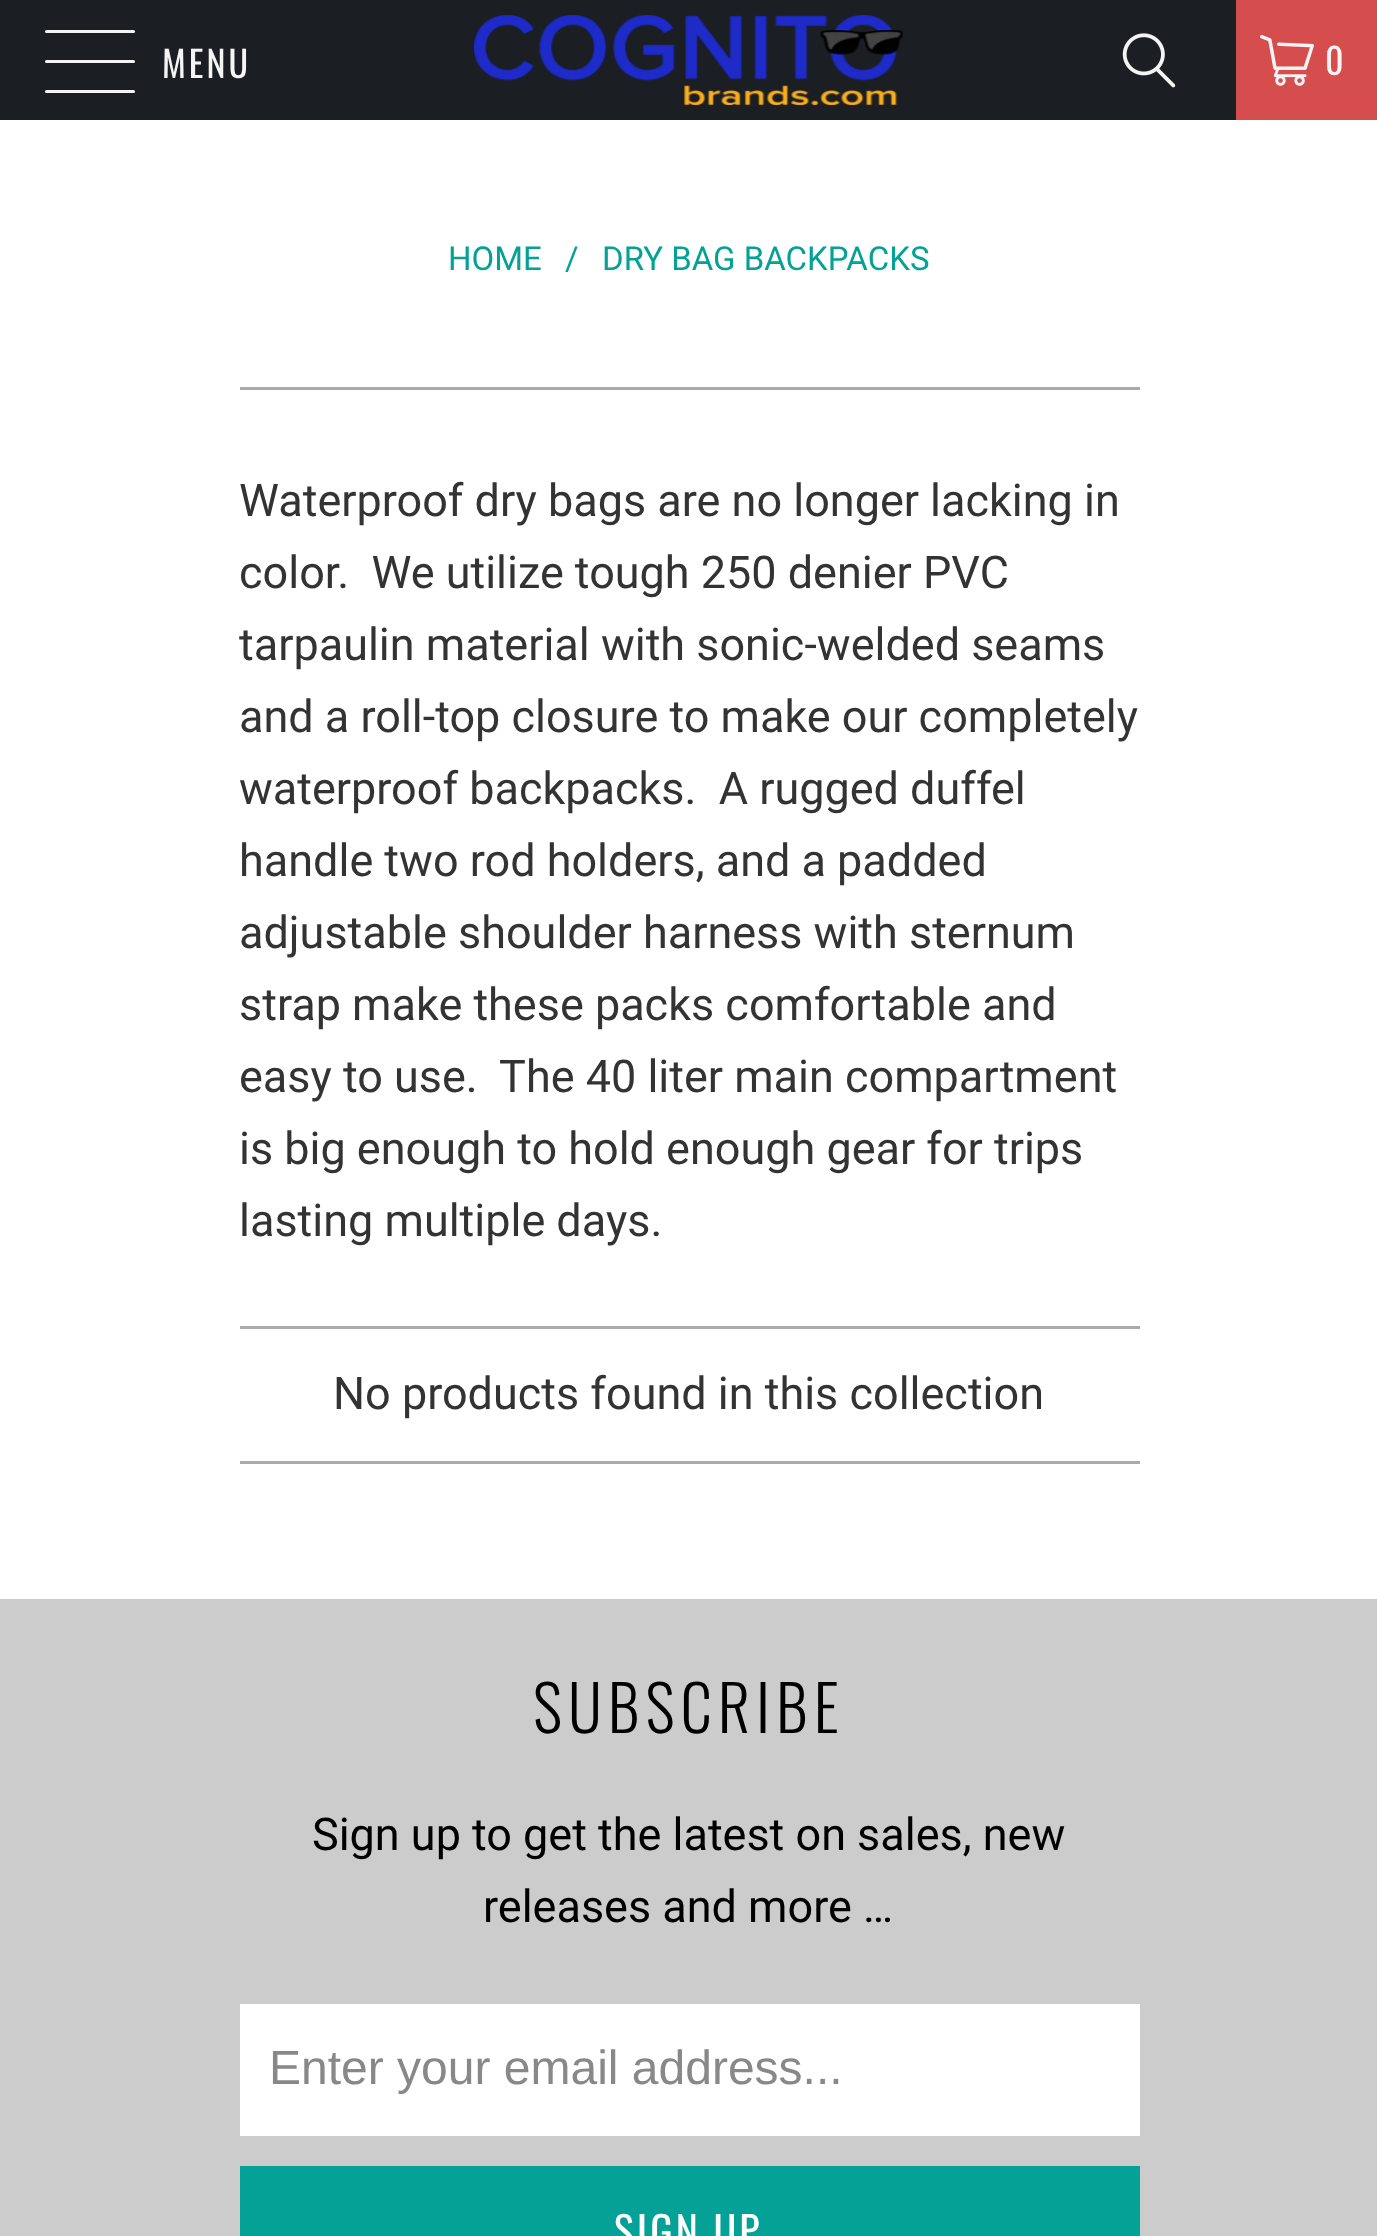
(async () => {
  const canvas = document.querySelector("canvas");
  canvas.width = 1377;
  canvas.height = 2236;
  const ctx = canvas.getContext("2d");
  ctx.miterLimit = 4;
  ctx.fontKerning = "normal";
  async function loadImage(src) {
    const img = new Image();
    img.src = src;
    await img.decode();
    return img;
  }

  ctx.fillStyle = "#ffffff";
  ctx.fillRect(0, 0, 1377, 2236);
  ctx.fillStyle = "#1b1f23";
  ctx.fillRect(0, 0, 1236, 120);
  ctx.fillStyle = "#f4f4f4";
  ctx.beginPath();
  ctx.roundRect(45, 30, 90, 3, 1.5);
  ctx.fill();
  ctx.beginPath();
  ctx.roundRect(45, 60, 90, 3, 1.5);
  ctx.fill();
  ctx.beginPath();
  ctx.roundRect(45, 90, 90, 3, 1.5);
  ctx.fill();
  ctx.drawImage(await loadImage("img/1.png"), 474, 15, 429, 90);
  ctx.drawImage(await loadImage("img/2.png"), 1122, 33, 54, 55);
  ctx.fillStyle = "#d54d4d";
  ctx.fillRect(1236, 0, 141, 120);
  ctx.drawImage(await loadImage("img/3.png"), 1260, 35, 54, 51);
  for (const [x, y, w, h, color] of [
    [240, 387, 900, 3, "#aaaaaa"],
    [240, 1326, 900, 3, "#aaaaaa"],
    [240, 1461, 900, 3, "#aaaaaa"],
    [0, 1599, 1377, 637, "#cccccc"],
    [240, 2004, 900, 132, "#ffffff"],
    [240, 2166, 900, 70, "#03a196"],
  ]) {
    ctx.fillStyle = color;
    ctx.fillRect(x, y, w, h);
  }
  ctx.letterSpacing = "3px";
  ctx.font = "36px Oswald";
  ctx.fillStyle = "#f4f4f4";
  ctx.fillText("MENU", 162, 78);
  ctx.fillText("0", 1325, 75);
  ctx.letterSpacing = "0px";
  ctx.font = "33px Roboto";
  ctx.fillStyle = "#03a196";
  for (const [text, x, y] of [
    ["HOME", 448, 270],
    ["/", 565, 270],
    ["DRY BAG BACKPACKS", 602, 270],
  ]) {
    ctx.fillText(text, x, y);
  }
  ctx.font = "45px Roboto";
  ctx.fillStyle = "#333333";
  for (const [text, x, y] of [
    ["Waterproof dry bags are no longer lacking in", 239, 516],
    ["color.  We utilize tough 250 denier PVC", 239, 588],
    ["tarpaulin material with sonic-welded seams", 239, 660],
    ["and a roll-top closure to make our completely", 239, 732],
    ["waterproof backpacks.  A rugged duffel", 239, 804],
    ["handle two rod holders, and a padded", 239, 876],
    ["adjustable shoulder harness with sternum", 239, 948],
    ["strap make these packs comfortable and", 239, 1020],
    ["easy to use.  The 40 liter main compartment", 239, 1092],
    ["is big enough to hold enough gear for trips", 239, 1164],
    ["lasting multiple days.", 239, 1236],
    ["No products found in this collection", 333, 1409],
  ]) {
    ctx.fillText(text, x, y);
  }
  ctx.letterSpacing = "6px";
  ctx.font = "300 63px Oswald";
  ctx.fillStyle = "#000000";
  ctx.fillText("SUBSCRIBE", 533, 1733);
  ctx.letterSpacing = "0px";
  ctx.font = "45px Roboto";
  ctx.fillText("Sign up to get the latest on sales, new", 312, 1850);
  ctx.fillText("releases and more …", 483, 1922);
  ctx.font = "48px Liberation Sans";
  ctx.fillStyle = "#888888";
  ctx.fillText("Enter your email address...", 269, 2084);
  ctx.letterSpacing = "3px";
  ctx.font = "42px Oswald";
  ctx.fillStyle = "#ffffff";
  ctx.fillText("SIGN UP", 614, 2248);
})();
